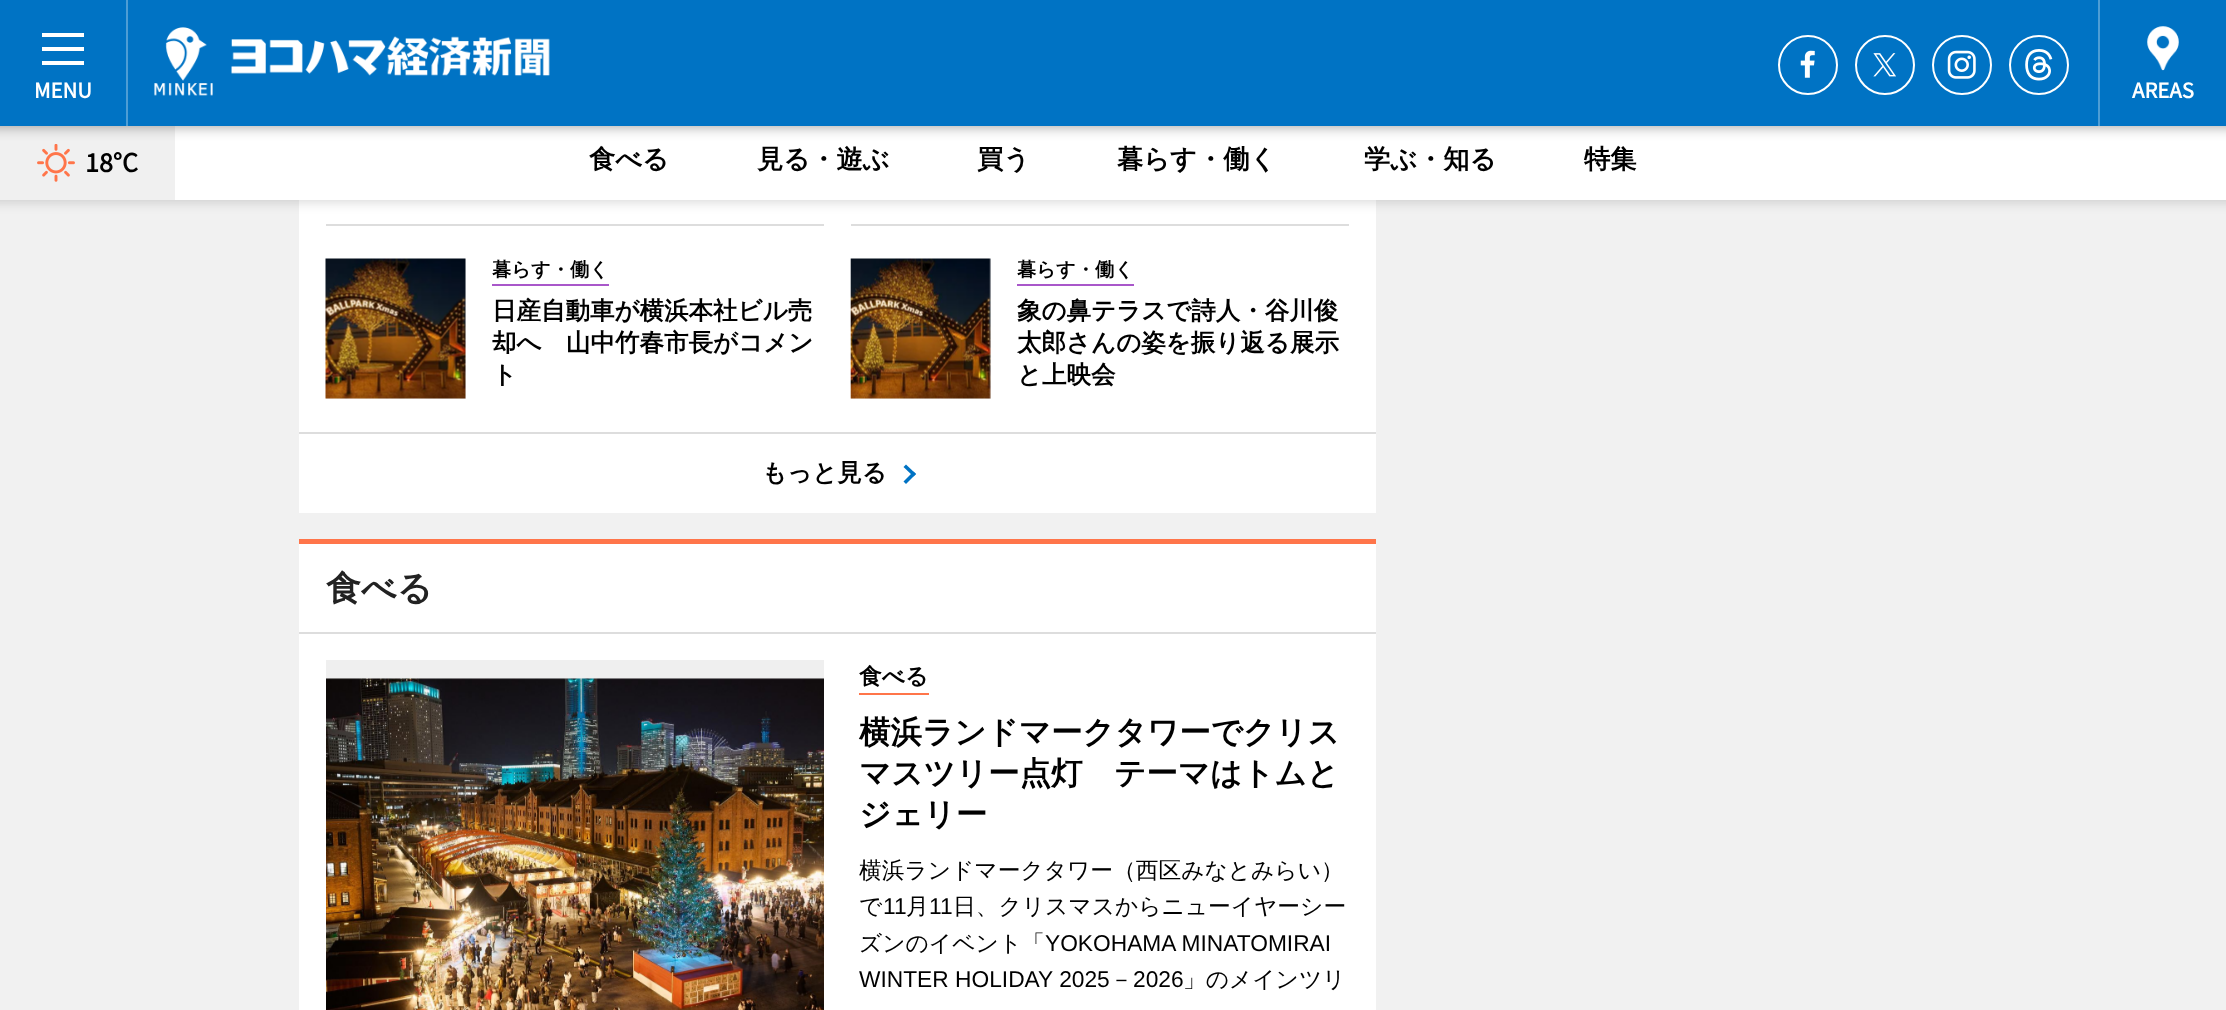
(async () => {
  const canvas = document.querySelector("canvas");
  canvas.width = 2226;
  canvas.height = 1010;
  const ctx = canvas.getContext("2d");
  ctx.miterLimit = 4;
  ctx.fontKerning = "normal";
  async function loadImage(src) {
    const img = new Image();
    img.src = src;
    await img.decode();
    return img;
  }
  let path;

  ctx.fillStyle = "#f1f1f1";
  ctx.fillRect(0, 0, 2226, 1010);
  ctx.fillStyle = "#ffffff";
  ctx.fillRect(299, 200, 1077, 313);
  ctx.fillStyle = "rgba(0, 0, 0, 0.2)";
  ctx.filter = "blur(7px)";
  ctx.beginPath();
  ctx.rect(-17, 91, 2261, 109);
  ctx.fill();
  ctx.filter = "none";
  ctx.fillStyle = "#ffffff";
  ctx.fillRect(175, 126, 2051, 74);
  ctx.fillStyle = "#f0f0f0";
  ctx.fillRect(0, 126, 175, 74);
  ctx.drawImage(await loadImage("img/7.png"), 37, 144, 38, 38);
  ctx.fillStyle = "rgba(0, 0, 0, 0.4)";
  ctx.filter = "blur(7px)";
  ctx.beginPath();
  ctx.rect(-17, -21, 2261, 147);
  ctx.fill();
  ctx.filter = "none";
  for (const [x, y, w, h, color] of [
    [0, 0, 2226, 126, "#0073c4"],
    [126, 0, 2, 126, "#4d9dd5"],
    [42, 33, 42, 4, "#ffffff"],
    [42, 61, 42, 4, "#ffffff"],
    [42, 47, 42, 4, "#ffffff"],
  ]) {
    ctx.fillStyle = color;
    ctx.fillRect(x, y, w, h);
  }
  ctx.drawImage(await loadImage("img/1.png"), 154, 27, 396, 69);
  ctx.drawImage(await loadImage("img/2.png"), 1800, 50, 15, 28);
  ctx.beginPath();
  ctx.arc(1808, 65, 29, 0, Math.PI * 2);
  ctx.strokeStyle = "#ffffff";
  ctx.lineWidth = 2;
  ctx.stroke();
  ctx.drawImage(await loadImage("img/3.png"), 1873, 53, 23, 24);
  ctx.beginPath();
  ctx.arc(1885, 65, 29, 0, Math.PI * 2);
  ctx.stroke();
  ctx.drawImage(await loadImage("img/4.png"), 1947, 50, 29, 29);
  ctx.beginPath();
  ctx.arc(1962, 65, 29, 0, Math.PI * 2);
  ctx.stroke();
  ctx.drawImage(await loadImage("img/5.png"), 2025, 49, 28, 32);
  ctx.beginPath();
  ctx.arc(2039, 65, 29, 0, Math.PI * 2);
  ctx.stroke();
  ctx.fillStyle = "#4d9dd5";
  ctx.fillRect(2098, 0, 2, 126);
  ctx.drawImage(await loadImage("img/6.png"), 2147, 26, 32, 45);
  ctx.fillStyle = "#dddddd";
  ctx.fillRect(326, 224, 498, 2);
  ctx.fillStyle = "#efefef";
  ctx.fillRect(326, 259, 140, 140);
  ctx.drawImage(await loadImage("img/8.png"), 325, 258, 141, 141);
  for (const [x, y, w, h, color] of [
    [492, 284, 117, 2, "#a957ca"],
    [851, 224, 498, 2, "#dddddd"],
    [851, 259, 140, 140, "#efefef"],
  ]) {
    ctx.fillStyle = color;
    ctx.fillRect(x, y, w, h);
  }
  ctx.drawImage(await loadImage("img/9.png"), 850, 258, 141, 141);
  ctx.fillStyle = "#a957ca";
  ctx.fillRect(1017, 284, 117, 2);
  ctx.fillStyle = "#dddddd";
  ctx.fillRect(299, 432, 1077, 2);
  ctx.fillStyle = "#0073c4";
  path = new Path2D("M906 464.5L916 474L913.5 476.5L903.5 467Z");
  ctx.fill(path);
  path = new Path2D("M913.5 471.5L916 474L906 484L903.5 481.5Z");
  ctx.fill(path);
  for (const [x, y, w, h, color] of [
    [299, 544, 1077, 466, "#ffffff"],
    [299, 539, 1077, 5, "#ff754a"],
    [299, 632, 1077, 2, "#dddddd"],
    [326, 660, 498, 20, "#efefef"],
  ]) {
    ctx.fillStyle = color;
    ctx.fillRect(x, y, w, h);
  }
  ctx.drawImage(await loadImage("img/10.png"), 326, 678, 498, 332);
  ctx.fillStyle = "#ff754a";
  ctx.fillRect(859, 693, 70, 2);
  ctx.font = "bold 22.75px Source Sans Pro";
  ctx.fillStyle = "#ffffff";
  ctx.fillText("MENU", 34, 98);
  ctx.fillText("AREAS", 2132, 98);
  ctx.font = "bold 28px Source Sans Pro";
  ctx.fillStyle = "#000000";
  ctx.fillText("18°C", 85, 172);
  ctx.font = "bold 26.25px WenQuanYi Zen Hei";
  for (const [text, x, y] of [
    ["食べる", 589, 168],
    ["見る・遊ぶ", 757, 168],
    ["買う", 977, 168],
    ["暮らす・働く", 1117, 168],
    ["学ぶ・知る", 1364, 168],
    ["特集", 1584, 168],
  ]) {
    ctx.fillText(text, x, y);
  }
  ctx.font = "bold 19.25px WenQuanYi Zen Hei";
  ctx.fillText("暮らす・働く", 492, 276);
  ctx.font = "bold 24.5px WenQuanYi Zen Hei";
  for (const [text, x, y] of [
    ["日産自動車が横浜本社ビル売", 492, 319],
    ["却へ　山中竹春市長がコメン", 492, 351],
    ["ト", 492, 383],
  ]) {
    ctx.fillText(text, x, y);
  }
  ctx.font = "bold 19.25px WenQuanYi Zen Hei";
  ctx.fillText("暮らす・働く", 1017, 276);
  ctx.font = "bold 24.5px WenQuanYi Zen Hei";
  for (const [text, x, y] of [
    ["象の鼻テラスで詩人・谷川俊", 1017, 319],
    ["太郎さんの姿を振り返る展示", 1017, 351],
    ["と上映会", 1017, 383],
    ["もっと見る", 762, 481],
  ]) {
    ctx.fillText(text, x, y);
  }
  ctx.font = "bold 35px WenQuanYi Zen Hei";
  ctx.fillStyle = "#222222";
  ctx.fillText("食べる", 326, 600);
  ctx.font = "bold 22.75px WenQuanYi Zen Hei";
  ctx.fillStyle = "#000000";
  ctx.fillText("食べる", 859, 684);
  ctx.font = "bold 31.5px WenQuanYi Zen Hei";
  for (const [text, x, y] of [
    ["横浜ランドマークタワーでクリス", 859, 743],
    ["マスツリー点灯　テーマはトムと", 859, 784],
    ["ジェリー", 859, 825],
  ]) {
    ctx.fillText(text, x, y);
  }
  ctx.font = "500 22.75px WenQuanYi Zen Hei";
  ctx.fillText("横浜ランドマークタワー（西区みなとみらい）", 859, 878);
  ctx.fillText("で", 859, 914);
  ctx.font = "22.75px Liberation Sans";
  ctx.fillText("11", 883, 914);
  ctx.font = "500 22.75px WenQuanYi Zen Hei";
  ctx.fillText("月", 906, 914);
  ctx.font = "22.75px Liberation Sans";
  ctx.fillText("11", 929, 914);
  ctx.font = "500 22.75px WenQuanYi Zen Hei";
  ctx.fillText("日、クリスマスからニューイヤーシー", 953, 914);
  ctx.fillText("ズンのイベント「", 859, 951);
  ctx.font = "22.75px Liberation Sans";
  ctx.fillText("YOKOHAMA MINATOMIRAI", 1045, 951);
  ctx.fillText("WINTER HOLIDAY 2025", 859, 987);
  ctx.font = "500 22.75px WenQuanYi Zen Hei";
  ctx.fillText("－", 1110, 987);
  ctx.font = "22.75px Liberation Sans";
  ctx.fillText("2026", 1133, 987);
  ctx.font = "500 22.75px WenQuanYi Zen Hei";
  ctx.fillText("」のメインツリ", 1183, 987);
})();
